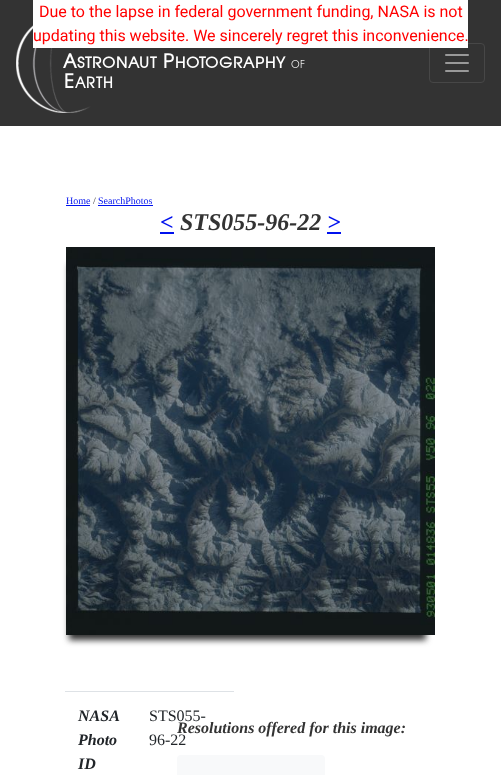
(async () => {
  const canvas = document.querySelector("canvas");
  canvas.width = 501;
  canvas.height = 775;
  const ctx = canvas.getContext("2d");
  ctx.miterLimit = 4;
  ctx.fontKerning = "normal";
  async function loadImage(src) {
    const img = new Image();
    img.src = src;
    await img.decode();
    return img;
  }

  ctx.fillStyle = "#ffffff";
  ctx.fillRect(0, 0, 501, 775);
  ctx.fillStyle = "#333333";
  ctx.fillRect(0, 0, 501, 126);
  ctx.drawImage(await loadImage("img/1.png"), 16, 25, 289, 88);
  ctx.beginPath();
  ctx.roundRect(429.5, 43.5, 55, 39, 3.5);
  ctx.strokeStyle = "#474747";
  ctx.stroke();
  ctx.drawImage(await loadImage("img/2.png"), 445, 54, 24, 18);
  for (const [x, y, w, h, color] of [
    [33, 0, 435, 48, "#ffffff"],
    [66, 205, 24, 1, "#0011ee"],
    [98, 205, 55, 1, "#0011ee"],
    [160, 232, 14, 2, "#0011ee"],
    [327, 232, 14, 2, "#0011ee"],
  ]) {
    ctx.fillStyle = color;
    ctx.fillRect(x, y, w, h);
  }
  ctx.fillStyle = "#333333";
  ctx.filter = "blur(3px)";
  ctx.beginPath();
  ctx.rect(69, 264, 357, 376);
  ctx.fill();
  ctx.filter = "none";
  ctx.drawImage(await loadImage("img/3.png"), 66, 247, 369, 388);
  ctx.fillStyle = "#dee2e6";
  ctx.fillRect(65, 691, 169, 1);
  ctx.fillStyle = "#f8f9fa";
  ctx.beginPath();
  ctx.roundRect(177, 755, 148, 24, 4);
  ctx.fill();
  ctx.font = "16px Roboto";
  ctx.fillStyle = "#ff0000";
  ctx.fillText("Due to the lapse in federal government funding, NASA is not", 39, 17);
  ctx.fillText("updating this website. We sincerely regret this inconvenience.", 33, 41);
  ctx.font = "10px Liberation Serif";
  ctx.fillStyle = "#0011ee";
  ctx.fillText("Home", 66, 204);
  ctx.fillStyle = "#333333";
  ctx.fillText("/", 93, 204);
  ctx.fillStyle = "#0011ee";
  ctx.fillText("SearchPhotos", 98, 204);
  ctx.font = "italic bold 24px Liberation Serif";
  ctx.fillText("<", 160, 230);
  ctx.fillStyle = "#333333";
  ctx.fillText("STS055-96-22", 180, 230);
  ctx.fillStyle = "#0011ee";
  ctx.fillText(">", 327, 230);
  ctx.font = "italic bold 16px Liberation Serif";
  ctx.fillStyle = "#212529";
  for (const [text, x, y] of [
    ["NASA", 78, 721],
    ["Photo", 78, 745],
    ["ID", 78, 769],
  ]) {
    ctx.fillText(text, x, y);
  }
  ctx.font = "16px Liberation Serif";
  ctx.fillText("STS055-", 149, 721);
  ctx.fillText("96-22", 149, 745);
  ctx.font = "italic bold 16px Liberation Serif";
  ctx.fillStyle = "#333333";
  ctx.fillText("Resolutions offered for this image:", 177, 733);
})();
